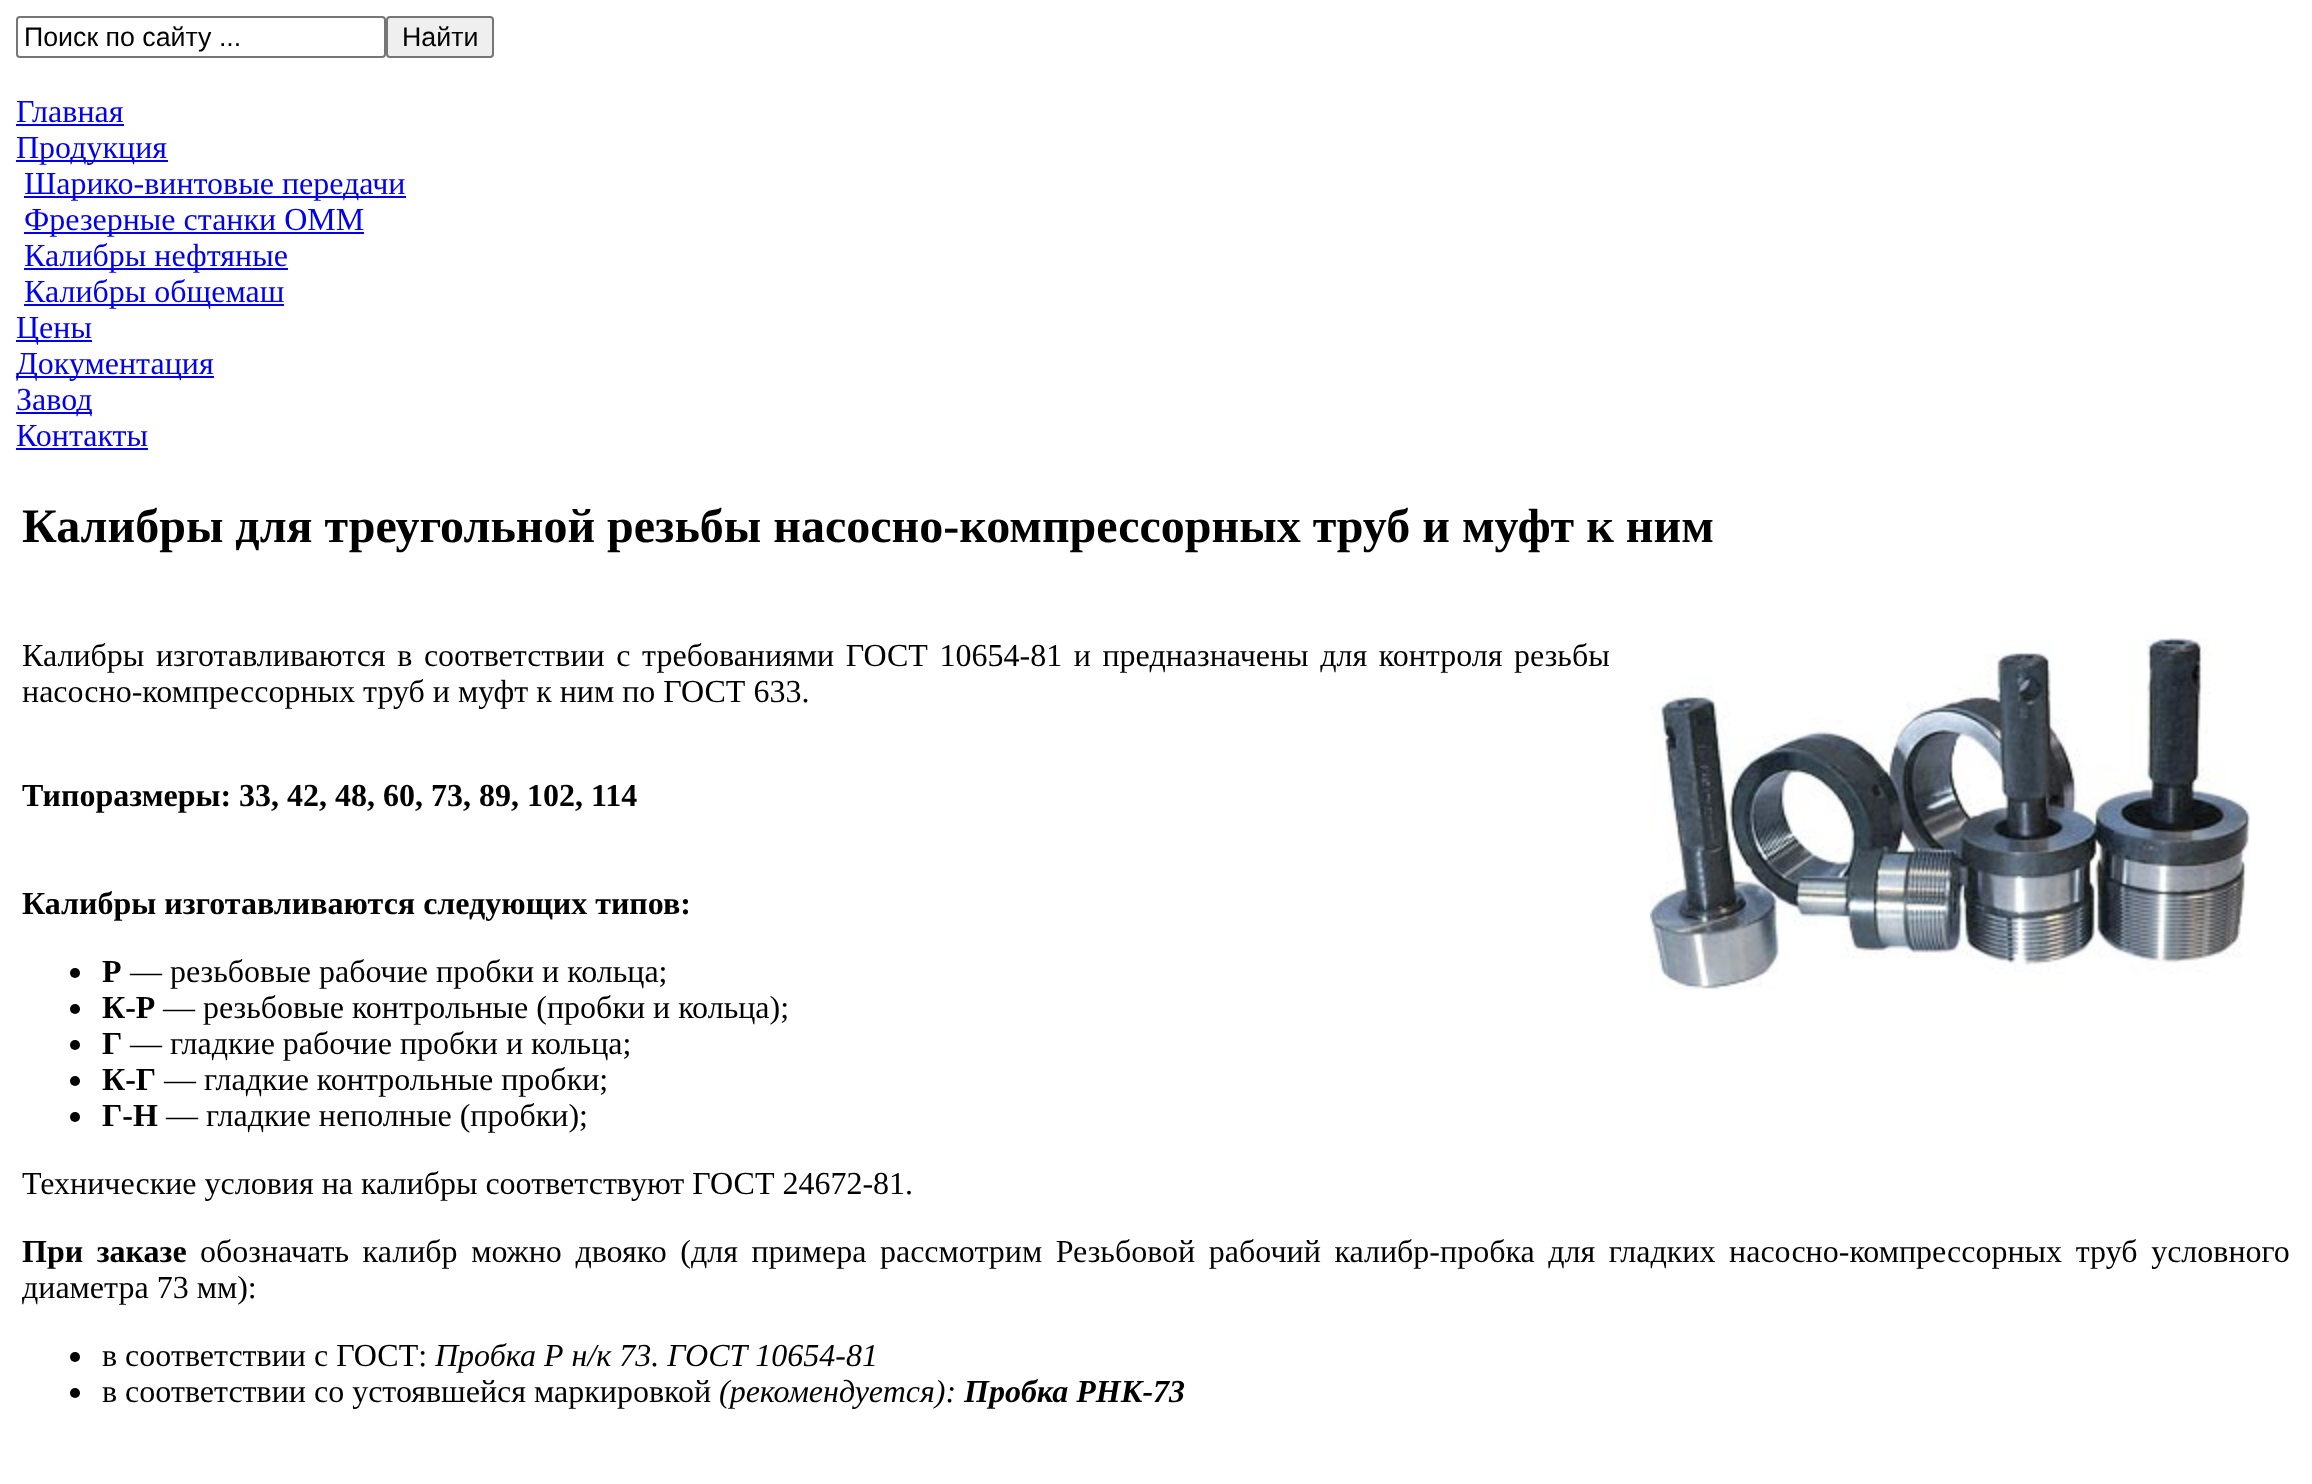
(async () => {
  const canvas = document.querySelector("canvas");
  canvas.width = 2312;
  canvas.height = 1484;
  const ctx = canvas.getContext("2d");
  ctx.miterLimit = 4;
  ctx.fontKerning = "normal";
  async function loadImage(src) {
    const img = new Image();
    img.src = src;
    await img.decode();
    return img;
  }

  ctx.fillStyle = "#ffffff";
  ctx.fillRect(0, 0, 2312, 1484);
  ctx.beginPath();
  ctx.roundRect(17, 17, 368, 40, 3);
  ctx.strokeStyle = "#767676";
  ctx.lineWidth = 2;
  ctx.stroke();
  ctx.fillStyle = "#efefef";
  ctx.beginPath();
  ctx.roundRect(387, 17, 106, 40, 3);
  ctx.fill();
  ctx.stroke();
  for (const [x, y, w, h, color] of [
    [16, 124, 108, 2, "#0000ee"],
    [16, 160, 152, 2, "#0000ee"],
    [24, 196, 382, 2, "#0000ee"],
    [24, 232, 340, 2, "#0000ee"],
    [24, 268, 264, 2, "#0000ee"],
    [24, 304, 260, 2, "#0000ee"],
    [16, 340, 76, 2, "#0000ee"],
    [16, 376, 198, 2, "#0000ee"],
    [16, 412, 76, 2, "#0000ee"],
    [16, 448, 132, 2, "#0000ee"],
  ]) {
    ctx.fillStyle = color;
    ctx.fillRect(x, y, w, h);
  }
  ctx.drawImage(await loadImage("img/1.png"), 1650, 638, 600, 352);
  ctx.fillStyle = "#000000";
  ctx.beginPath();
  ctx.arc(75, 973, 5, 0, Math.PI * 2);
  ctx.fill();
  ctx.beginPath();
  ctx.arc(75, 1009, 5, 0, Math.PI * 2);
  ctx.fill();
  ctx.beginPath();
  ctx.arc(75, 1045, 5, 0, Math.PI * 2);
  ctx.fill();
  ctx.beginPath();
  ctx.arc(75, 1081, 5, 0, Math.PI * 2);
  ctx.fill();
  ctx.beginPath();
  ctx.arc(75, 1117, 5, 0, Math.PI * 2);
  ctx.fill();
  ctx.beginPath();
  ctx.arc(75, 1357, 5, 0, Math.PI * 2);
  ctx.fill();
  ctx.beginPath();
  ctx.arc(75, 1393, 5, 0, Math.PI * 2);
  ctx.fill();
  ctx.font = "26.75px Liberation Sans";
  ctx.fillText("Поиск по сайту ...", 24, 46);
  ctx.fillText("Найти", 402, 46);
  ctx.font = "32px Liberation Serif";
  ctx.fillStyle = "#0000ee";
  for (const [text, x, y] of [
    ["Главная", 16, 122],
    ["Продукция", 16, 158],
    ["Шарико-винтовые передачи", 24, 194],
    ["Фрезерные станки ОММ", 24, 230],
    ["Калибры нефтяные", 24, 266],
    ["Калибры общемаш", 24, 302],
    ["Цены", 16, 338],
    ["Документация", 16, 374],
    ["Завод", 16, 410],
    ["Контакты", 16, 446],
  ]) {
    ctx.fillText(text, x, y);
  }
  ctx.font = "bold 48px Liberation Serif";
  ctx.fillStyle = "#000000";
  ctx.fillText("Калибры для треугольной резьбы насосно-компрессорных труб и муфт к ним", 22, 542);
  ctx.wordSpacing = "3.6px";
  ctx.font = "32px Liberation Serif";
  ctx.fillText("Калибры изготавливаются в соответствии с требованиями ГОСТ 10654-81 и предназначены для контроля резьбы", 22, 666);
  ctx.wordSpacing = "0px";
  ctx.fillText("насосно-компрессорных труб и муфт к ним по ГОСТ 633.", 22, 702);
  ctx.font = "bold 32px Liberation Serif";
  for (const [text, x, y] of [
    ["Типоразмеры: 33, 42, 48, 60, 73, 89, 102, 114", 22, 806],
    ["Калибры изготавливаются следующих типов:", 22, 914],
    ["Р", 102, 982],
  ]) {
    ctx.fillText(text, x, y);
  }
  ctx.font = "32px Liberation Serif";
  ctx.fillText("— резьбовые рабочие пробки и кольца;", 130, 982);
  ctx.font = "bold 32px Liberation Serif";
  ctx.fillText("К-Р", 102, 1018);
  ctx.font = "32px Liberation Serif";
  ctx.fillText("— резьбовые контрольные (пробки и кольца);", 163, 1018);
  ctx.font = "bold 32px Liberation Serif";
  ctx.fillText("Г", 102, 1054);
  ctx.font = "32px Liberation Serif";
  ctx.fillText("— гладкие рабочие пробки и кольца;", 130, 1054);
  ctx.font = "bold 32px Liberation Serif";
  ctx.fillText("К-Г", 102, 1090);
  ctx.font = "32px Liberation Serif";
  ctx.fillText("— гладкие контрольные пробки;", 164, 1090);
  ctx.font = "bold 32px Liberation Serif";
  ctx.fillText("Г-Н", 102, 1126);
  ctx.font = "32px Liberation Serif";
  ctx.fillText("— гладкие неполные (пробки);", 166, 1126);
  ctx.fillText("Технические условия на калибры соответствуют ГОСТ 24672-81.", 22, 1194);
  ctx.wordSpacing = "5.6px";
  ctx.font = "bold 32px Liberation Serif";
  ctx.fillText("При заказе", 22, 1262);
  ctx.font = "32px Liberation Serif";
  ctx.fillText("обозначать калибр можно двояко (для примера рассмотрим Резьбовой рабочий калибр-пробка для гладких насосно-компрессорных труб условного", 200, 1262);
  ctx.wordSpacing = "0px";
  ctx.fillText("диаметра 73 мм):", 22, 1298);
  ctx.fillText("в соответствии с ГОСТ:", 102, 1366);
  ctx.font = "italic 32px Liberation Serif";
  ctx.fillText("Пробка Р н/к 73. ГОСТ 10654-81", 435, 1366);
  ctx.font = "32px Liberation Serif";
  ctx.fillText("в соответствии со устоявшейся маркировкой", 102, 1402);
  ctx.font = "italic 32px Liberation Serif";
  ctx.fillText("(рекомендуется):", 719, 1402);
  ctx.font = "italic bold 32px Liberation Serif";
  ctx.fillText("Пробка РНК-73", 964, 1402);
})();
